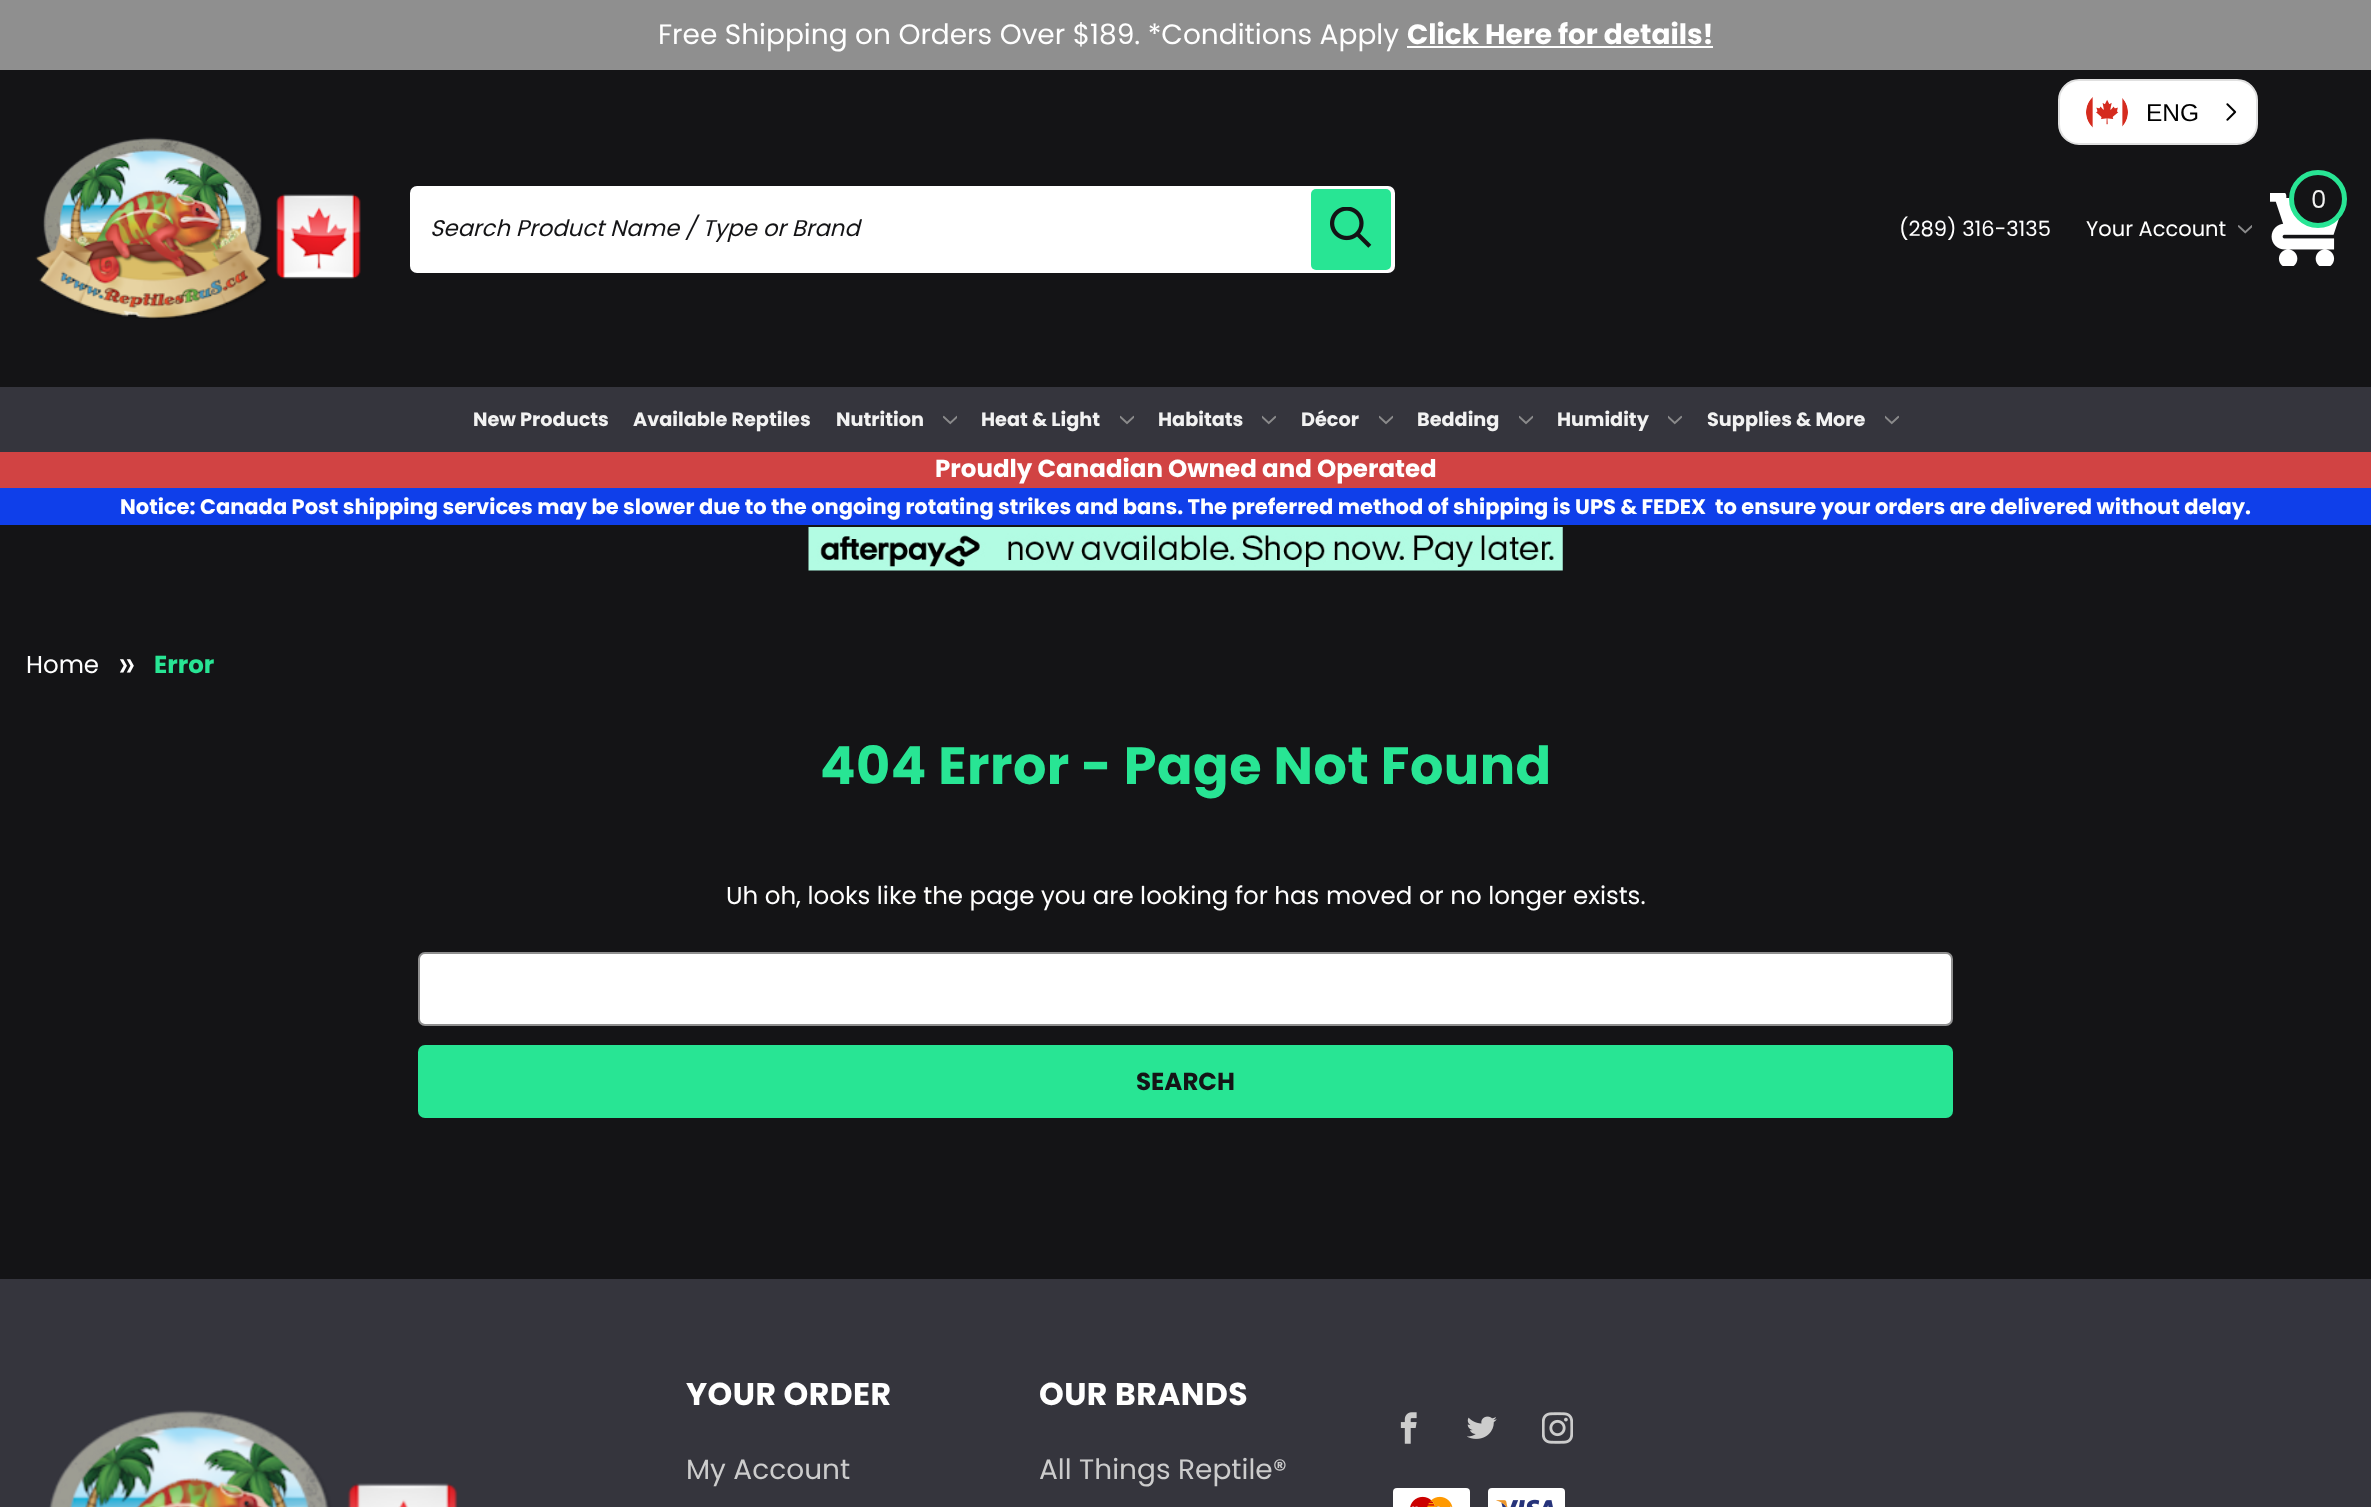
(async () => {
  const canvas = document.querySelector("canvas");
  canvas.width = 2371;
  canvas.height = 1507;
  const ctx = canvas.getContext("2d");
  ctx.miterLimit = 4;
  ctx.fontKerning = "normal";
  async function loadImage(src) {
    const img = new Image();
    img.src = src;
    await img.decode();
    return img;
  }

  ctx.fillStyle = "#141416";
  ctx.fillRect(0, 0, 2371, 1507);
  ctx.fillStyle = "#8f8f8f";
  ctx.fillRect(0, 0, 2371, 70);
  ctx.fillStyle = "#ffffff";
  ctx.fillRect(1407, 46, 306, 2);
  ctx.beginPath();
  ctx.roundRect(2059, 80, 198, 64, 20);
  ctx.fill();
  ctx.strokeStyle = "#e0e0e0";
  ctx.lineWidth = 2;
  ctx.stroke();
  ctx.drawImage(await loadImage("img/1.png"), 2086, 97, 42, 31);
  ctx.drawImage(await loadImage("img/2.png"), 2226, 103, 11, 18);
  ctx.drawImage(await loadImage("img/3.png"), 35, 137, 326, 182);
  ctx.drawImage(await loadImage("img/4.png"), 2270, 193, 70, 73);
  ctx.fillStyle = "#141416";
  ctx.beginPath();
  ctx.arc(2318, 199, 26.5, 0, Math.PI * 2);
  ctx.fill();
  ctx.strokeStyle = "#28e594";
  ctx.lineWidth = 5;
  ctx.stroke();
  ctx.fillStyle = "#ffffff";
  ctx.beginPath();
  ctx.roundRect(410, 186, 985, 87, 7);
  ctx.fill();
  ctx.fillStyle = "#28e594";
  ctx.beginPath();
  ctx.roundRect(1311, 189, 80, 81, 5);
  ctx.fill();
  ctx.drawImage(await loadImage("img/5.png"), 1330, 207, 42, 41);
  ctx.drawImage(await loadImage("img/6.png"), 2238, 225, 14, 9);
  ctx.fillStyle = "#35353d";
  ctx.fillRect(0, 387, 2371, 65);
  ctx.drawImage(await loadImage("img/7.png"), 943, 415, 14, 10);
  ctx.drawImage(await loadImage("img/8.png"), 1120, 415, 14, 10);
  ctx.drawImage(await loadImage("img/9.png"), 1262, 415, 14, 10);
  ctx.drawImage(await loadImage("img/8.png"), 1379, 415, 14, 10);
  ctx.drawImage(await loadImage("img/8.png"), 1519, 415, 14, 10);
  ctx.drawImage(await loadImage("img/9.png"), 1668, 415, 14, 10);
  ctx.drawImage(await loadImage("img/9.png"), 1885, 415, 14, 10);
  ctx.fillStyle = "#d14343";
  ctx.fillRect(0, 452, 2371, 36);
  ctx.fillStyle = "#0f3fea";
  ctx.fillRect(0, 488, 2371, 37);
  ctx.drawImage(await loadImage("img/10.png"), 808, 527, 755, 44);
  ctx.fillStyle = "#ffffff";
  ctx.beginPath();
  ctx.roundRect(419, 953, 1533, 72, 6);
  ctx.fill();
  ctx.strokeStyle = "#8f8f8f";
  ctx.lineWidth = 2;
  ctx.stroke();
  ctx.fillStyle = "#28e594";
  ctx.beginPath();
  ctx.roundRect(418, 1045, 1535, 73, 7);
  ctx.fill();
  ctx.fillStyle = "#35353d";
  ctx.fillRect(0, 1279, 2371, 228);
  ctx.drawImage(await loadImage("img/11.png"), 49, 1410, 409, 97);
  ctx.drawImage(await loadImage("img/12.png"), 1400, 1412, 17, 32);
  ctx.drawImage(await loadImage("img/13.png"), 1467, 1416, 30, 23);
  ctx.drawImage(await loadImage("img/14.png"), 1542, 1412, 31, 32);
  ctx.fillStyle = "#ffffff";
  ctx.beginPath();
  ctx.roundRect(1393, 1488, 77, 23, 4);
  ctx.fill();
  ctx.drawImage(await loadImage("img/15.png"), 1410, 1496, 43, 11);
  ctx.beginPath();
  ctx.roundRect(1488, 1488, 77, 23, 4);
  ctx.fill();
  ctx.drawImage(await loadImage("img/16.png"), 1496, 1499, 57, 8);
  ctx.font = "28px Poppins";
  ctx.fillText("Free Shipping on Orders Over $189. *Conditions Apply", 658, 44);
  ctx.font = "bold 28px Poppins";
  ctx.fillText("Click Here for details!", 1407, 44);
  ctx.font = "24.5px Liberation Sans";
  ctx.fillStyle = "#000000";
  ctx.fillText("ENG", 2146, 121);
  ctx.font = "24.5px Poppins";
  ctx.fillStyle = "#f2f2f2";
  ctx.fillText("0", 2311, 208);
  ctx.font = "italic 22.75px Poppins";
  ctx.fillStyle = "#141416";
  ctx.fillText("Search Product Name / Type or Brand", 430, 236);
  ctx.font = "21px Poppins";
  ctx.fillStyle = "#ffffff";
  ctx.fillText("(289) 316-3135", 1899, 236);
  ctx.fillText("Your Account", 2086, 236);
  ctx.font = "bold 19.25px Poppins";
  ctx.fillStyle = "#f2f2f2";
  for (const [text, x, y] of [
    ["New Products", 473, 426],
    ["Available Reptiles", 633, 426],
    ["Nutrition", 836, 426],
    ["Heat & Light", 981, 426],
    ["Habitats", 1158, 426],
    ["Décor", 1301, 426],
    ["Bedding", 1417, 426],
    ["Humidity", 1557, 426],
    ["Supplies & More", 1707, 426],
  ]) {
    ctx.fillText(text, x, y);
  }
  ctx.font = "bold 24.5px Poppins";
  ctx.fillStyle = "#ffffff";
  ctx.fillText("Proudly Canadian Owned and Operated", 935, 477);
  ctx.font = "bold 21px Poppins";
  ctx.fillText("Notice: Canada Post shipping services may be slower due to the ongoing rotating strikes and bans. The preferred method of shipping is UPS & FEDEX  to ensure your orders are delivered without delay.", 120, 514);
  ctx.font = "24.5px Poppins";
  ctx.fillText("Home", 26, 673);
  ctx.font = "38px Poppins";
  ctx.fillText("»", 118, 677);
  ctx.font = "bold 24.5px Poppins";
  ctx.fillStyle = "#28e594";
  ctx.fillText("Error", 154, 673);
  ctx.letterSpacing = "0.45px";
  ctx.font = "bold 52.5px Poppins";
  ctx.fillText("404 Error - Page Not Found", 820, 784);
  ctx.letterSpacing = "0px";
  ctx.font = "24.5px Poppins";
  ctx.fillStyle = "#ffffff";
  ctx.fillText("Uh oh, looks like the page you are looking for has moved or no longer exists.", 726, 904);
  ctx.font = "bold 24.5px Poppins";
  ctx.fillStyle = "#141416";
  ctx.fillText("SEARCH", 1136, 1090);
  ctx.letterSpacing = "0.45px";
  ctx.font = "bold 31.5px Poppins";
  ctx.fillStyle = "#ffffff";
  ctx.fillText("YOUR ORDER", 686, 1405);
  ctx.letterSpacing = "0px";
  ctx.font = "28px Poppins";
  ctx.fillStyle = "#cccccc";
  ctx.fillText("My Account", 686, 1479);
  ctx.letterSpacing = "0.45px";
  ctx.font = "bold 31.5px Poppins";
  ctx.fillStyle = "#ffffff";
  ctx.fillText("OUR BRANDS", 1039, 1405);
  ctx.letterSpacing = "0px";
  ctx.font = "28px Poppins";
  ctx.fillStyle = "#cccccc";
  ctx.fillText("All Things Reptile®", 1039, 1479);
})();
